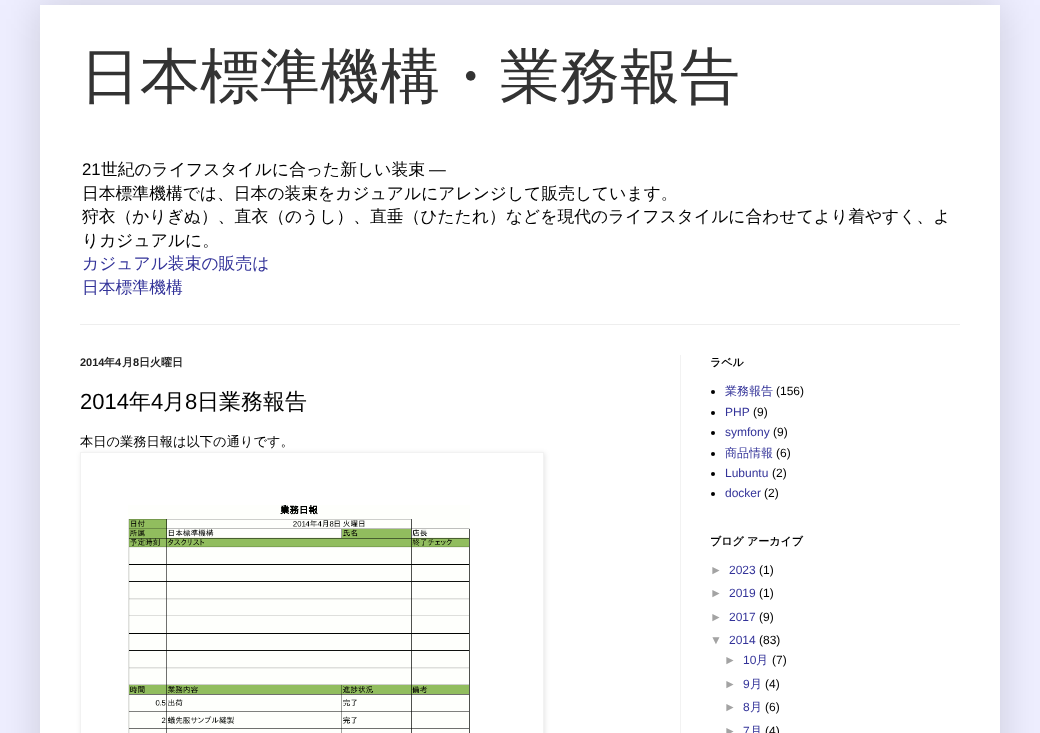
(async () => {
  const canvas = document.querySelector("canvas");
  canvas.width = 1040;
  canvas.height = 733;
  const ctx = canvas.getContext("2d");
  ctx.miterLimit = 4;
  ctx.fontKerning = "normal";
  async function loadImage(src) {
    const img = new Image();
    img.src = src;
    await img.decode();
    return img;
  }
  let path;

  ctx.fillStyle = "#eeeeff";
  ctx.fillRect(0, 0, 1040, 733);
  ctx.fillStyle = "rgba(0, 0, 0, 0.15)";
  ctx.filter = "blur(20px)";
  ctx.beginPath();
  ctx.rect(40, 5, 960, 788);
  ctx.fill();
  ctx.filter = "none";
  for (const [x, y, w, h, color] of [
    [40, 5, 960, 728, "#ffffff"],
    [80, 324, 880, 1, "#eeeeee"],
    [680, 355, 1, 378, "#f2f2f2"],
  ]) {
    ctx.fillStyle = color;
    ctx.fillRect(x, y, w, h);
  }
  ctx.save();
  path = new Path2D("M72 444H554V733H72ZM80 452H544V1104H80Z");
  ctx.clip(path, "evenodd");
  ctx.fillStyle = "rgba(0, 0, 0, 0.1)";
  ctx.filter = "blur(2.5px)";
  ctx.beginPath();
  ctx.rect(81, 453, 464, 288);
  ctx.fill();
  ctx.filter = "none";
  ctx.restore();
  ctx.strokeStyle = "#f2f2f2";
  ctx.strokeRect(80.5, 452.5, 463, 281);
  ctx.drawImage(await loadImage("img/1.png"), 128, 505, 342, 228);
  ctx.fillStyle = "#000000";
  ctx.beginPath();
  ctx.arc(713, 392, 2, 0, Math.PI * 2);
  ctx.fill();
  ctx.beginPath();
  ctx.arc(713, 413, 2, 0, Math.PI * 2);
  ctx.fill();
  ctx.beginPath();
  ctx.arc(713, 433, 2, 0, Math.PI * 2);
  ctx.fill();
  ctx.beginPath();
  ctx.arc(713, 454, 2, 0, Math.PI * 2);
  ctx.fill();
  ctx.beginPath();
  ctx.arc(713, 474, 2, 0, Math.PI * 2);
  ctx.fill();
  ctx.beginPath();
  ctx.arc(713, 494, 2, 0, Math.PI * 2);
  ctx.fill();
  ctx.font = "500 60px WenQuanYi Zen Hei";
  ctx.fillStyle = "#333333";
  ctx.fillText("日本標準機構・業務報告", 80, 97);
  ctx.font = "16.8px Liberation Sans";
  ctx.fillStyle = "#000000";
  ctx.fillText("21", 82, 175);
  ctx.font = "500 16.8px WenQuanYi Zen Hei";
  ctx.fillText("世紀のライフスタイルに合った新しい装束", 101, 175);
  ctx.font = "16.8px Liberation Sans";
  ctx.fillText("―", 429, 175);
  ctx.font = "500 16.8px WenQuanYi Zen Hei";
  for (const [text, x, y] of [
    ["日本標準機構では、日本の装束をカジュアルにアレンジして販売しています。", 82, 199],
    ["狩衣（かりぎぬ）、直衣（のうし）、直垂（ひたたれ）などを現代のライフスタイルに合わせてより着やすく、よ", 82, 222],
    ["りカジュアルに。", 82, 246],
  ]) {
    ctx.fillText(text, x, y);
  }
  ctx.fillStyle = "#333399";
  ctx.fillText("カジュアル装束の販売は", 82, 269);
  ctx.fillText("日本標準機構", 82, 293);
  ctx.font = "bold 11px Liberation Sans";
  ctx.fillStyle = "#222222";
  ctx.fillText("2014", 80, 366);
  ctx.font = "bold 11px WenQuanYi Zen Hei";
  ctx.fillText("年", 104, 366);
  ctx.font = "bold 11px Liberation Sans";
  ctx.fillText("4", 115, 366);
  ctx.font = "bold 11px WenQuanYi Zen Hei";
  ctx.fillText("月", 122, 366);
  ctx.font = "bold 11px Liberation Sans";
  ctx.fillText("8", 133, 366);
  ctx.font = "bold 11px WenQuanYi Zen Hei";
  ctx.fillText("日火曜日", 139, 366);
  ctx.font = "22px Liberation Sans";
  ctx.fillStyle = "#000000";
  ctx.fillText("2014", 80, 409);
  ctx.font = "500 22px WenQuanYi Zen Hei";
  ctx.fillText("年", 129, 409);
  ctx.font = "22px Liberation Sans";
  ctx.fillText("4", 151, 409);
  ctx.font = "500 22px WenQuanYi Zen Hei";
  ctx.fillText("月", 163, 409);
  ctx.font = "22px Liberation Sans";
  ctx.fillText("8", 185, 409);
  ctx.font = "500 22px WenQuanYi Zen Hei";
  ctx.fillText("日業務報告", 197, 409);
  ctx.font = "500 13.25px WenQuanYi Zen Hei";
  ctx.fillText("本日の業務日報は以下の通りです。", 80, 446);
  ctx.font = "bold 11px WenQuanYi Zen Hei";
  ctx.fillText("ラベル", 710, 366);
  ctx.font = "500 12px WenQuanYi Zen Hei";
  ctx.fillStyle = "#333399";
  ctx.fillText("業務報告", 725, 395);
  ctx.font = "12px Liberation Sans";
  ctx.fillStyle = "#000000";
  ctx.fillText("(156)", 776, 395);
  ctx.fillStyle = "#333399";
  ctx.fillText("PHP", 725, 416);
  ctx.fillStyle = "#000000";
  ctx.fillText("(9)", 753, 416);
  ctx.fillStyle = "#333399";
  ctx.fillText("symfony", 725, 436);
  ctx.fillStyle = "#000000";
  ctx.fillText("(9)", 773, 436);
  ctx.font = "500 12px WenQuanYi Zen Hei";
  ctx.fillStyle = "#333399";
  ctx.fillText("商品情報", 725, 457);
  ctx.font = "12px Liberation Sans";
  ctx.fillStyle = "#000000";
  ctx.fillText("(6)", 776, 457);
  ctx.fillStyle = "#333399";
  ctx.fillText("Lubuntu", 725, 477);
  ctx.fillStyle = "#000000";
  ctx.fillText("(2)", 772, 477);
  ctx.fillStyle = "#333399";
  ctx.fillText("docker", 725, 497);
  ctx.fillStyle = "#000000";
  ctx.fillText("(2)", 764, 497);
  ctx.font = "bold 11px WenQuanYi Zen Hei";
  ctx.fillText("ブログ アーカイブ", 710, 545);
  ctx.font = "12px Liberation Sans";
  ctx.fillStyle = "#a3a3a3";
  ctx.fillText("►", 710, 574);
  ctx.fillStyle = "#333399";
  ctx.fillText("2023", 729, 574);
  ctx.fillStyle = "#000000";
  ctx.fillText("(1)", 759, 574);
  ctx.fillStyle = "#a3a3a3";
  ctx.fillText("►", 710, 597);
  ctx.fillStyle = "#333399";
  ctx.fillText("2019", 729, 597);
  ctx.fillStyle = "#000000";
  ctx.fillText("(1)", 759, 597);
  ctx.fillStyle = "#a3a3a3";
  ctx.fillText("►", 710, 621);
  ctx.fillStyle = "#333399";
  ctx.fillText("2017", 729, 621);
  ctx.fillStyle = "#000000";
  ctx.fillText("(9)", 759, 621);
  ctx.fillStyle = "#a3a3a3";
  ctx.fillText("▼", 710, 644);
  ctx.fillStyle = "#333399";
  ctx.fillText("2014", 729, 644);
  ctx.fillStyle = "#000000";
  ctx.fillText("(83)", 759, 644);
  ctx.fillStyle = "#a3a3a3";
  ctx.fillText("►", 724, 664);
  ctx.fillStyle = "#333399";
  ctx.fillText("10", 743, 664);
  ctx.font = "500 12px WenQuanYi Zen Hei";
  ctx.fillText("月", 756, 664);
  ctx.font = "12px Liberation Sans";
  ctx.fillStyle = "#000000";
  ctx.fillText("(7)", 772, 664);
  ctx.fillStyle = "#a3a3a3";
  ctx.fillText("►", 724, 688);
  ctx.fillStyle = "#333399";
  ctx.fillText("9", 743, 688);
  ctx.font = "500 12px WenQuanYi Zen Hei";
  ctx.fillText("月", 750, 688);
  ctx.font = "12px Liberation Sans";
  ctx.fillStyle = "#000000";
  ctx.fillText("(4)", 765, 688);
  ctx.fillStyle = "#a3a3a3";
  ctx.fillText("►", 724, 711);
  ctx.fillStyle = "#333399";
  ctx.fillText("8", 743, 711);
  ctx.font = "500 12px WenQuanYi Zen Hei";
  ctx.fillText("月", 750, 711);
  ctx.font = "12px Liberation Sans";
  ctx.fillStyle = "#000000";
  ctx.fillText("(6)", 765, 711);
  ctx.fillStyle = "#a3a3a3";
  ctx.fillText("►", 724, 735);
  ctx.fillStyle = "#333399";
  ctx.fillText("7", 743, 735);
  ctx.font = "500 12px WenQuanYi Zen Hei";
  ctx.fillText("月", 750, 735);
  ctx.font = "12px Liberation Sans";
  ctx.fillStyle = "#000000";
  ctx.fillText("(4)", 765, 735);
})();
